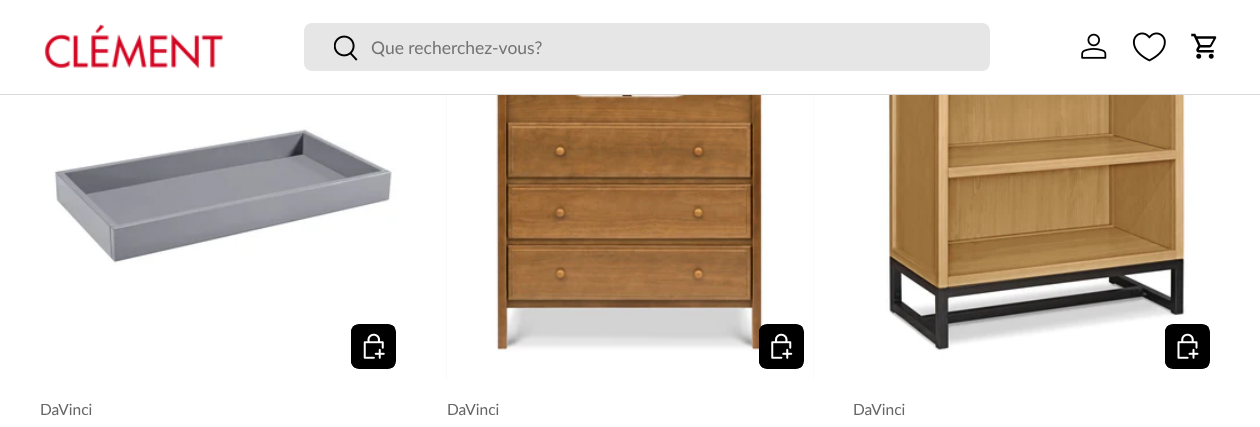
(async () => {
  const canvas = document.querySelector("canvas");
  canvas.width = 1260;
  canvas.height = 427;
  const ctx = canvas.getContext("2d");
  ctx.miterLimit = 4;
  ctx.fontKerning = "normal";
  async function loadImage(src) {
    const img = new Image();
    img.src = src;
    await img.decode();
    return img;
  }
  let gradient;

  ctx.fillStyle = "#ffffff";
  ctx.fillRect(0, 0, 1260, 427);
  ctx.fillStyle = "#d9d9d9";
  ctx.fillRect(0, 94, 1260, 1);
  ctx.drawImage(await loadImage("img/1.png"), 44, 24, 179, 45);
  ctx.fillStyle = "#e6e6e6";
  ctx.beginPath();
  ctx.roundRect(304, 23, 686, 48, 8);
  ctx.fill();
  ctx.drawImage(await loadImage("img/2.png"), 334, 35, 24, 26);
  ctx.drawImage(await loadImage("img/3.png"), 1081, 33, 26, 26);
  ctx.drawImage(await loadImage("img/4.png"), 1132, 32, 34, 30);
  ctx.drawImage(await loadImage("img/5.png"), 1191, 33, 26, 26);
  ctx.drawImage(await loadImage("img/6.png"), 40, 95, 366, 284);
  ctx.save();
  ctx.beginPath();
  ctx.roundRect(351, 324, 45, 45, 8);
  ctx.clip();
  gradient = ctx.createLinearGradient(266, 330, 396, 362);
  gradient.addColorStop(0.6, "#2e2e2e");
  gradient.addColorStop(0.6, "#000000");
  gradient.addColorStop(1, "#000000");
  ctx.fillStyle = gradient;
  ctx.fillRect(351, 325, 44, 43);
  ctx.restore();
  ctx.beginPath();
  ctx.roundRect(351.5, 324.5, 44, 44, 7.5);
  ctx.strokeStyle = "#000000";
  ctx.stroke();
  ctx.drawImage(await loadImage("img/7.png"), 363, 333, 22, 26);
  ctx.fillStyle = "#f4f4f4";
  ctx.fillRect(446, 95, 368, 284);
  ctx.drawImage(await loadImage("img/8.png"), 446, 95, 368, 284);
  ctx.save();
  ctx.beginPath();
  ctx.roundRect(759, 324, 45, 45, 8);
  ctx.clip();
  gradient = ctx.createLinearGradient(674, 330, 804, 362);
  gradient.addColorStop(0.6, "#2e2e2e");
  gradient.addColorStop(0.6, "#000000");
  gradient.addColorStop(1, "#000000");
  ctx.fillStyle = gradient;
  ctx.fillRect(759, 325, 44, 43);
  ctx.restore();
  ctx.beginPath();
  ctx.roundRect(759.5, 324.5, 44, 44, 7.5);
  ctx.stroke();
  ctx.drawImage(await loadImage("img/9.png"), 771, 333, 22, 26);
  ctx.drawImage(await loadImage("img/10.png"), 854, 95, 366, 284);
  ctx.save();
  ctx.beginPath();
  ctx.roundRect(1165, 324, 45, 45, 8);
  ctx.clip();
  gradient = ctx.createLinearGradient(1080, 330, 1210, 362);
  gradient.addColorStop(0.6, "#2e2e2e");
  gradient.addColorStop(0.6, "#000000");
  gradient.addColorStop(1, "#000000");
  ctx.fillStyle = gradient;
  ctx.fillRect(1165, 325, 44, 43);
  ctx.restore();
  ctx.beginPath();
  ctx.roundRect(1165.5, 324.5, 44, 44, 7.5);
  ctx.stroke();
  ctx.drawImage(await loadImage("img/11.png"), 1177, 333, 22, 26);
  ctx.font = "17.5px Lato";
  ctx.fillStyle = "#737373";
  ctx.fillText("Que recherchez-vous?", 371, 54);
  ctx.font = "15.5px Lato";
  ctx.fillStyle = "#666666";
  for (const [text, x, y] of [
    ["DaVinci", 40, 415],
    ["DaVinci", 447, 415],
    ["DaVinci", 853, 415],
  ]) {
    ctx.fillText(text, x, y);
  }
})();
